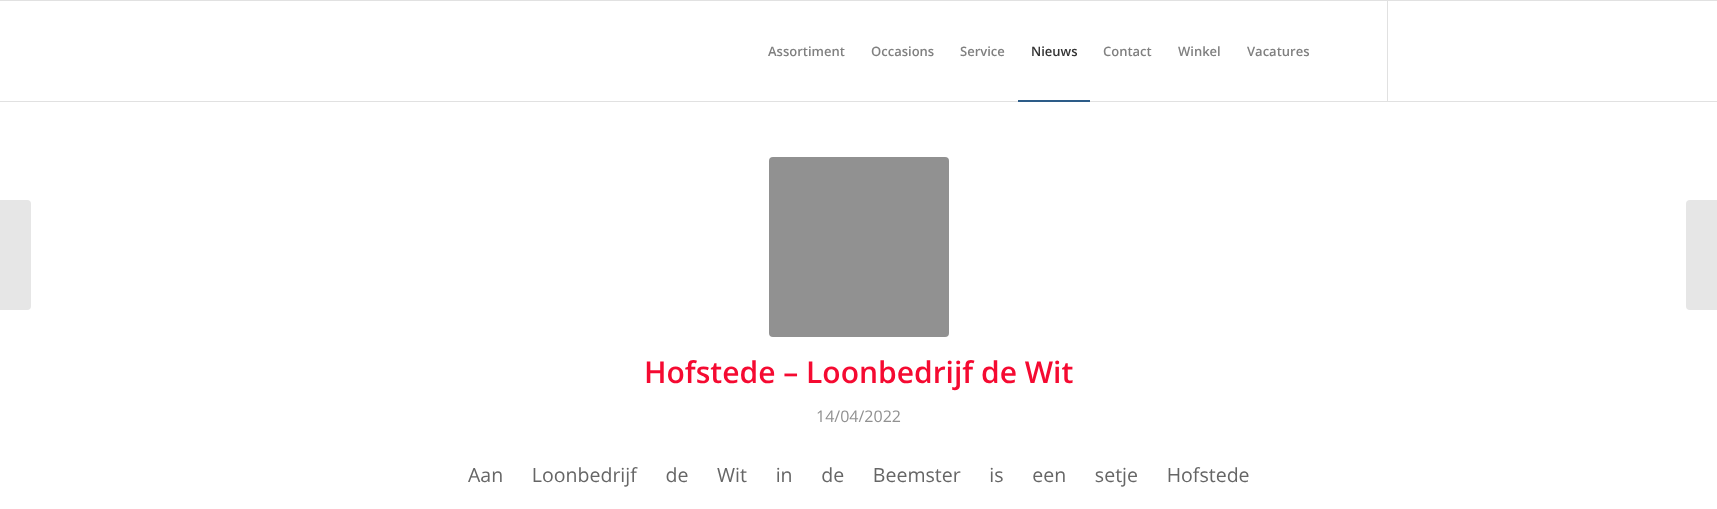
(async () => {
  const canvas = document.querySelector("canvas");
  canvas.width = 1717;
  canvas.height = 509;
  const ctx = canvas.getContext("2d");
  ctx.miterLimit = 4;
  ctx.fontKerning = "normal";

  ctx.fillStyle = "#ffffff";
  ctx.fillRect(0, 0, 1717, 509);
  for (const [x, y, w, h, color] of [
    [0, 0, 1717, 1, "#e1e1e1"],
    [0, 101, 1717, 1, "#e1e1e1"],
    [1387, 1, 1, 100, "#e1e1e1"],
    [1018, 100, 72, 2, "#2d5c88"],
  ]) {
    ctx.fillStyle = color;
    ctx.fillRect(x, y, w, h);
  }
  ctx.fillStyle = "#e6e6e6";
  ctx.beginPath();
  ctx.roundRect(0, 200, 31, 110, [0, 4, 4, 0]);
  ctx.fill();
  ctx.beginPath();
  ctx.roundRect(1686, 200, 31, 110, [4, 0, 0, 4]);
  ctx.fill();
  ctx.fillStyle = "#919191";
  ctx.beginPath();
  ctx.roundRect(769, 157, 180, 180, 4);
  ctx.fill();
  ctx.font = "600 13px Open Sans";
  ctx.fillStyle = "#808080";
  for (const [text, x, y] of [
    ["Assortiment", 768, 56],
    ["Occasions", 871, 56],
    ["Service", 960, 56],
  ]) {
    ctx.fillText(text, x, y);
  }
  ctx.fillStyle = "#333333";
  ctx.fillText("Nieuws", 1031, 56);
  ctx.fillStyle = "#808080";
  for (const [text, x, y] of [
    ["Contact", 1103, 56],
    ["Winkel", 1178, 56],
    ["Vacatures", 1247, 56],
  ]) {
    ctx.fillText(text, x, y);
  }
  ctx.font = "600 30px Open Sans";
  ctx.fillStyle = "#f50a31";
  ctx.fillText("Hofstede – Loonbedrijf de Wit", 644, 383);
  ctx.font = "16px Open Sans";
  ctx.fillStyle = "#919191";
  ctx.fillText("14/04/2022", 816, 422);
  ctx.wordSpacing = "23.6px";
  ctx.font = "19.55px Open Sans";
  ctx.fillStyle = "#666666";
  ctx.fillText("Aan Loonbedrijf de Wit in de Beemster is een setje Hofstede", 468, 482);
})();
